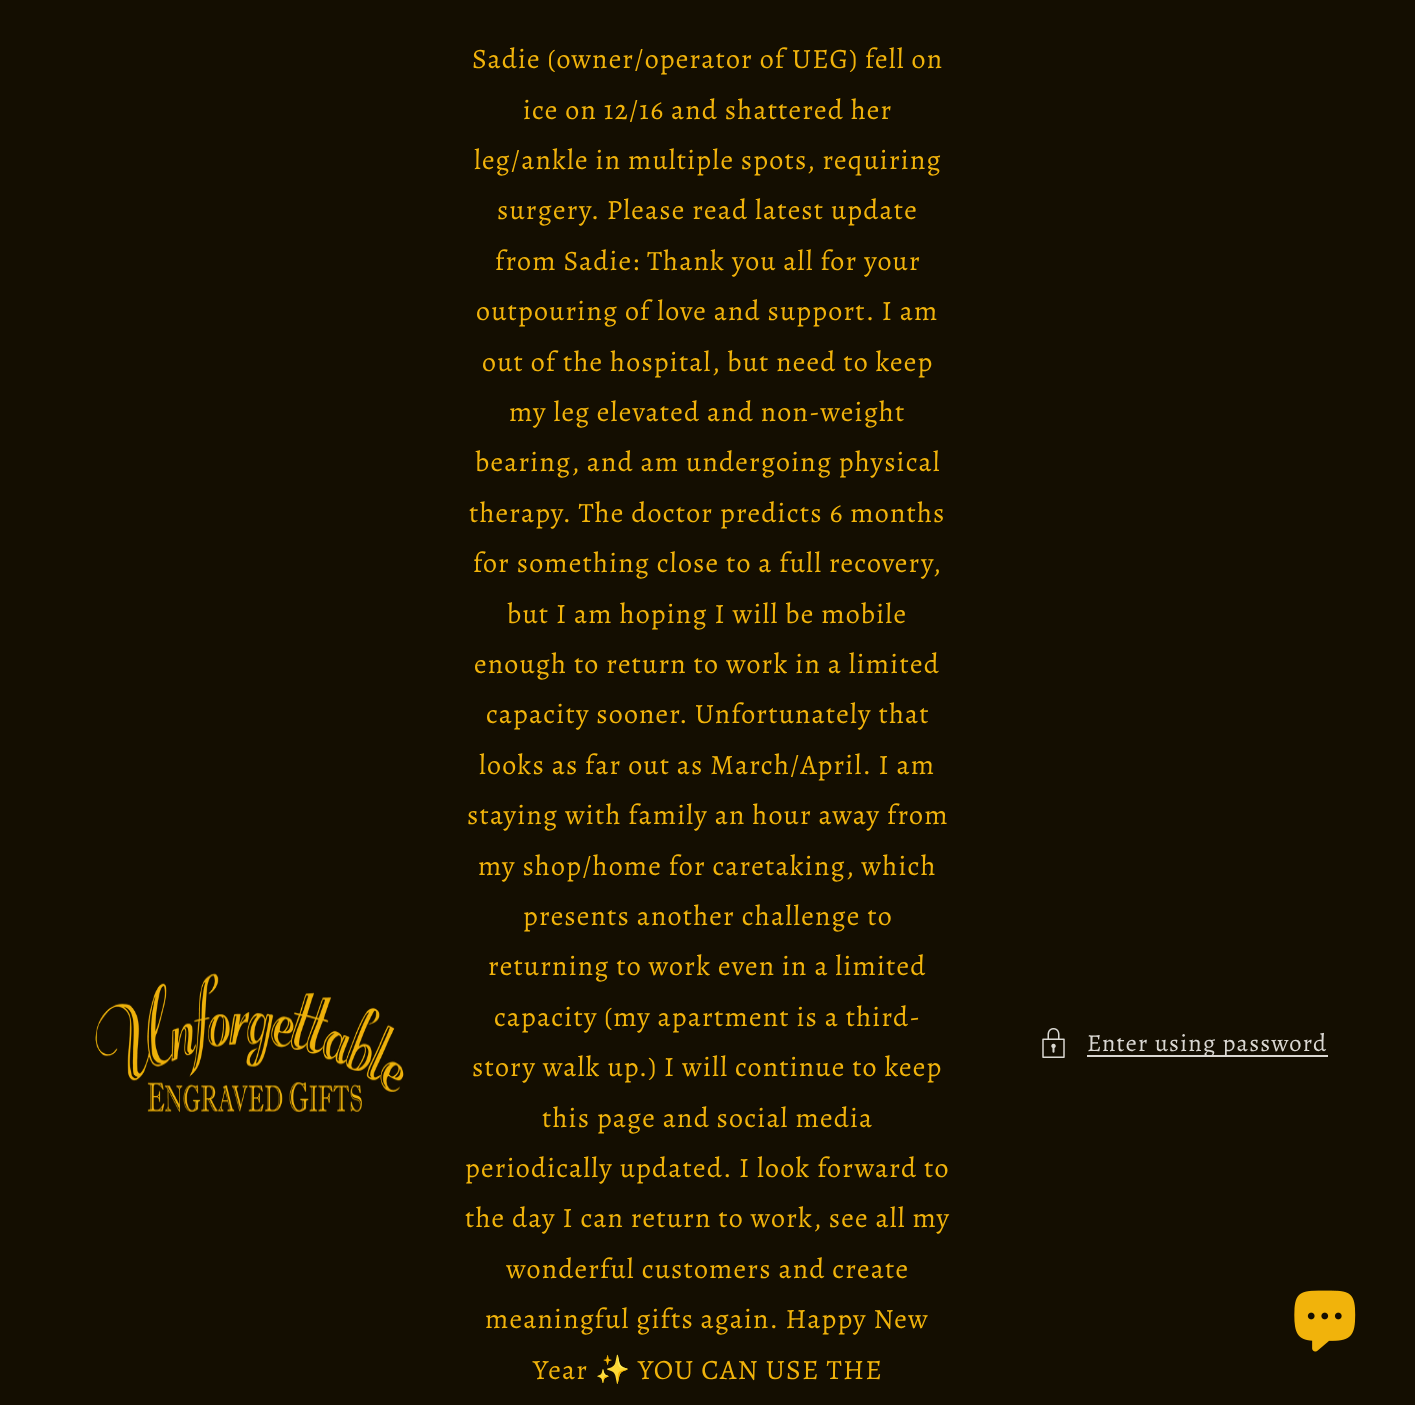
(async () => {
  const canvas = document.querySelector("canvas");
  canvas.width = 1415;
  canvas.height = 1405;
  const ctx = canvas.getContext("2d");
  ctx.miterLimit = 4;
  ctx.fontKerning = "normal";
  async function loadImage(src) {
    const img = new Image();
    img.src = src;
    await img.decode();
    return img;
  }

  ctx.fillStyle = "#140e01";
  ctx.fillRect(0, 0, 1415, 1405);
  ctx.drawImage(await loadImage("img/1.png"), 95, 973, 309, 140);
  ctx.drawImage(await loadImage("img/2.png"), 1042, 1028, 23, 30);
  ctx.fillStyle = "#dad7d2";
  ctx.fillRect(1087, 1055, 241, 2);
  ctx.drawImage(await loadImage("img/3.png"), 1294, 1290, 62, 62);
  ctx.letterSpacing = "1.2px";
  ctx.font = "28px Alegreya";
  ctx.fillStyle = "#f1b30b";
  for (const [text, x, y] of [
    ["Sadie (owner/operator of UEG) fell on", 472, 68],
    ["ice on 12/16 and shattered her", 523, 119],
    ["leg/ankle in multiple spots, requiring", 474, 169],
    ["surgery. Please read latest update", 497, 219],
    ["from Sadie: Thank you all for your", 495, 270],
    ["outpouring of love and support. I am", 476, 320],
    ["out of the hospital, but need to keep", 482, 371],
    ["my leg elevated and non-weight", 509, 421],
    ["bearing, and am undergoing physical", 475, 471],
    ["therapy. The doctor predicts 6 months", 469, 522],
    ["for something close to a full recovery,", 473, 572],
    ["but I am hoping I will be mobile", 507, 623],
    ["enough to return to work in a limited", 474, 673],
    ["capacity sooner. Unfortunately that", 486, 723],
    ["looks as far out as March/April. I am", 479, 774],
    ["staying with family an hour away from", 467, 824],
    ["my shop/home for caretaking, which", 478, 875],
    ["presents another challenge to", 523, 925],
    ["returning to work even in a limited", 488, 975],
    ["capacity (my apartment is a third-", 494, 1026],
    ["story walk up.) I will continue to keep", 472, 1076],
    ["this page and social media", 542, 1127],
    ["periodically updated. I look forward to", 465, 1177],
    ["the day I can return to work, see all my", 465, 1227],
    ["wonderful customers and create", 506, 1278],
    ["meaningful gifts again. Happy New", 485, 1328],
    ["Year", 533, 1379],
  ]) {
    ctx.fillText(text, x, y);
  }
  ctx.font = "28px Noto Color Emoji";
  ctx.fillText("✨", 595, 1379);
  ctx.font = "28px Alegreya";
  ctx.fillText("YOU CAN USE THE", 638, 1379);
  ctx.font = "24.5px Alegreya";
  ctx.fillStyle = "#dbd8d3";
  ctx.fillText("Enter using password", 1087, 1051);
})();
